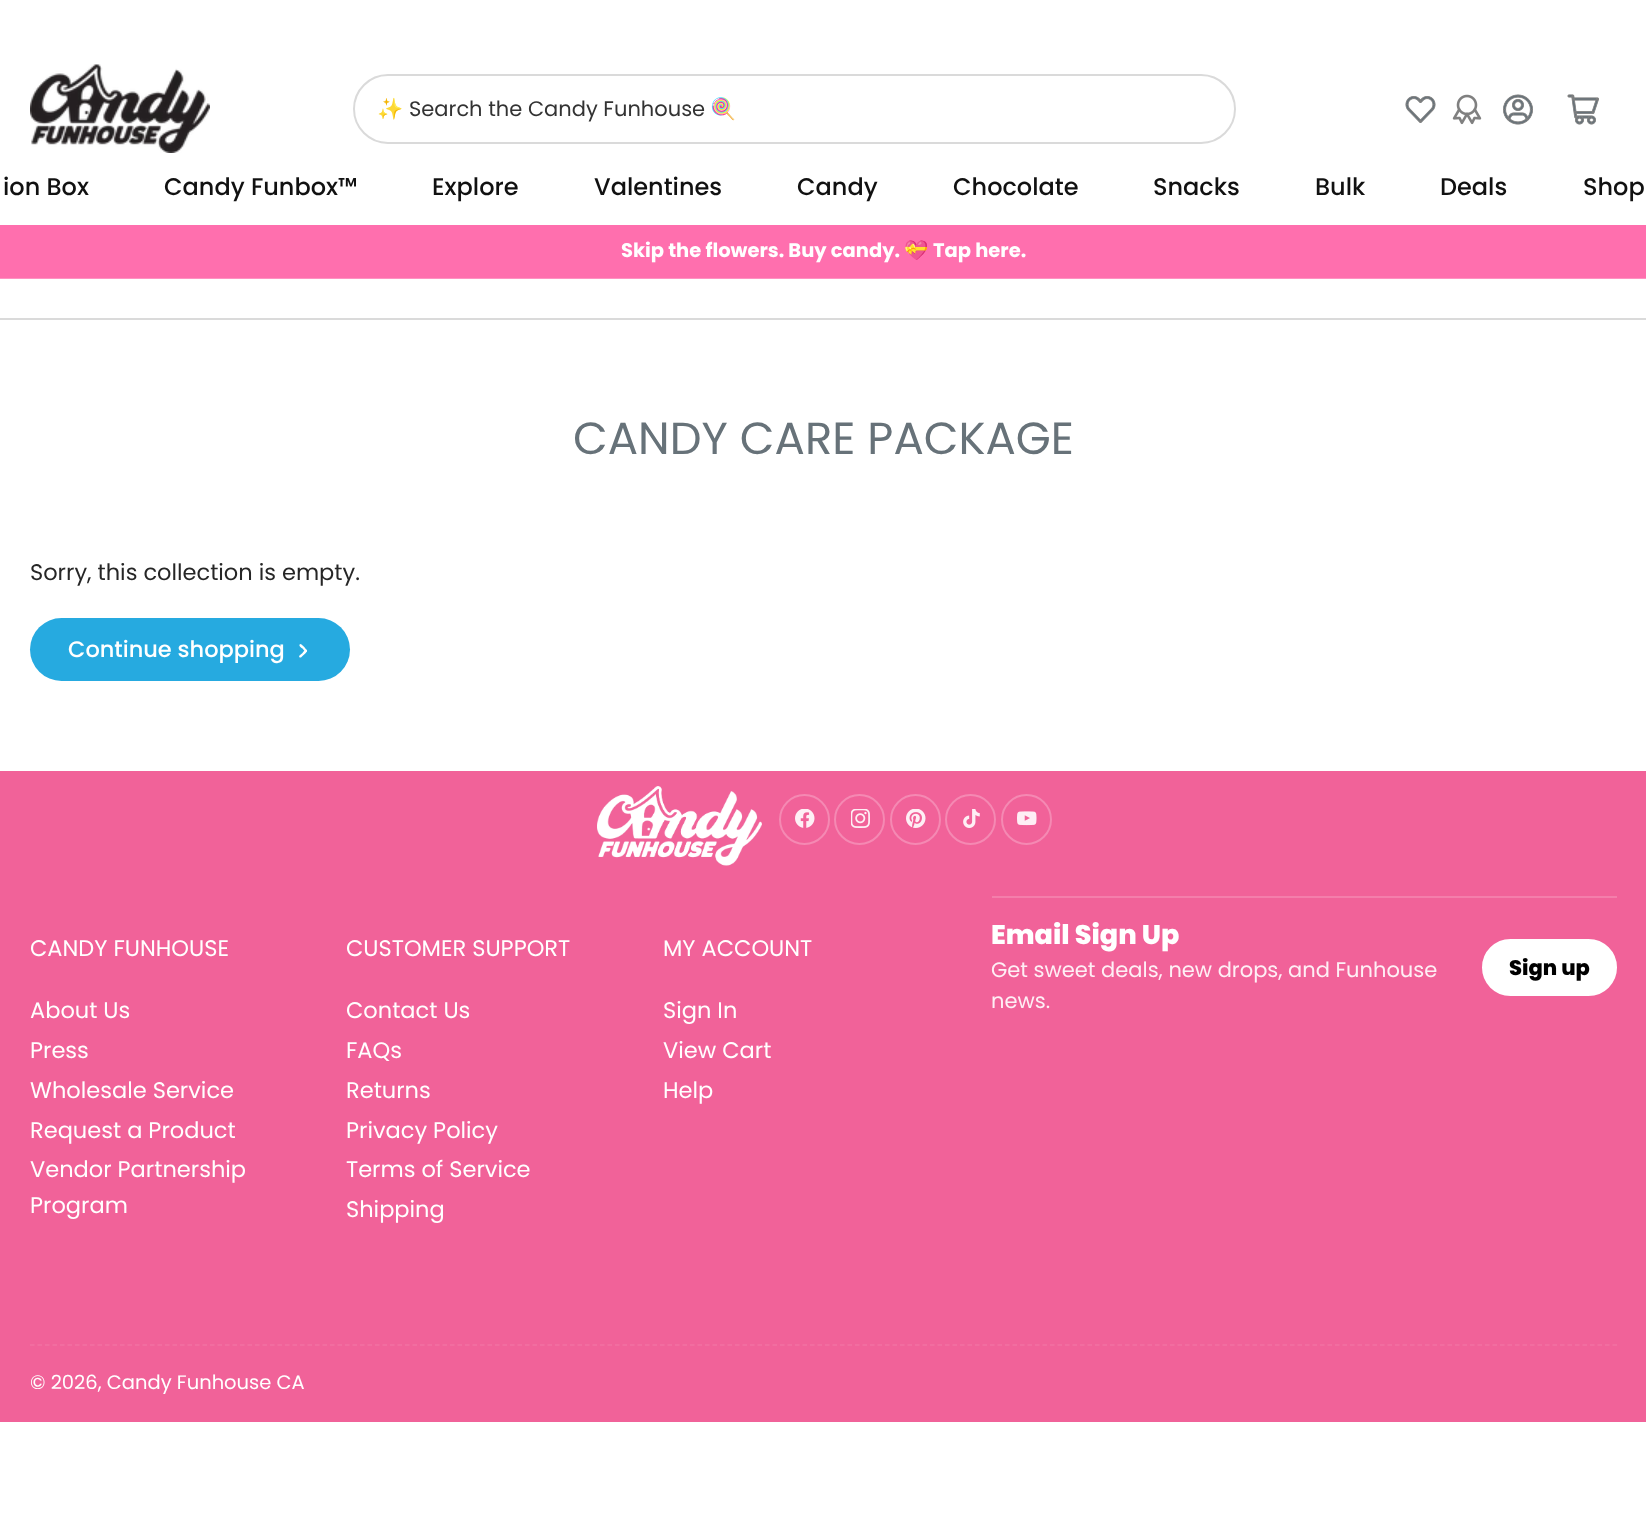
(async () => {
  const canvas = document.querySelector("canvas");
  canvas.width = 1646;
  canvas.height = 1532;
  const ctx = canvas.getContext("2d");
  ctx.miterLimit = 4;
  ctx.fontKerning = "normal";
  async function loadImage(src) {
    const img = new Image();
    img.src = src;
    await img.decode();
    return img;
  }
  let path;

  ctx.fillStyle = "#ffffff";
  ctx.fillRect(0, 0, 1646, 1532);
  ctx.drawImage(await loadImage("img/1.png"), 30, 64, 180, 89);
  ctx.beginPath();
  ctx.roundRect(354, 75, 881, 68, 34);
  ctx.strokeStyle = "#dadada";
  ctx.lineWidth = 2;
  ctx.stroke();
  ctx.drawImage(await loadImage("img/2.png"), 1405, 96, 31, 27);
  ctx.drawImage(await loadImage("img/3.png"), 1452, 94, 30, 31);
  ctx.drawImage(await loadImage("img/4.png"), 1503, 94, 30, 31);
  ctx.drawImage(await loadImage("img/5.png"), 1567, 94, 32, 31);
  for (const [x, y, w, h, color] of [
    [0, 225, 1646, 54, "#ff6fae"],
    [0, 278, 1646, 1, "rgba(255, 255, 255, 0.25)"],
    [0, 318, 1646, 2, "#dadada"],
  ]) {
    ctx.fillStyle = color;
    ctx.fillRect(x, y, w, h);
  }
  ctx.fillStyle = "#26aae0";
  ctx.beginPath();
  ctx.roundRect(30, 618, 320, 63, 31.5);
  ctx.fill();
  ctx.fillStyle = "#ffffff";
  path = new Path2D("M299.5 655.5L302.5 653C303 652 305 649.5 306 649.5C309.5 650.5 303.5 655 303 655.5L301 657.5C299.5 658 298.5 656.5 299.5 655.5Z");
  ctx.fill(path);
  path = new Path2D("M305 651.5L302.5 648.5C301.5 648 299 646 299.5 645C300 642 304.5 647.5 305 648L307 650.5C307.5 651.5 306 652.5 305 651.5Z");
  ctx.fill(path);
  ctx.fillStyle = "#f16299";
  ctx.fillRect(0, 771, 1646, 651);
  ctx.drawImage(await loadImage("img/6.png"), 597, 786, 165, 80);
  ctx.beginPath();
  ctx.arc(804.5, 819.5, 24.5, 0, Math.PI * 2);
  ctx.strokeStyle = "#f589b3";
  ctx.stroke();
  ctx.drawImage(await loadImage("img/7.png"), 795, 809, 20, 19);
  ctx.beginPath();
  ctx.arc(859.5, 819.5, 24.5, 0, Math.PI * 2);
  ctx.stroke();
  ctx.drawImage(await loadImage("img/8.png"), 851, 809, 19, 19);
  ctx.beginPath();
  ctx.arc(915.5, 819.5, 24.5, 0, Math.PI * 2);
  ctx.stroke();
  ctx.drawImage(await loadImage("img/9.png"), 906, 809, 20, 19);
  ctx.beginPath();
  ctx.arc(970.5, 819.5, 24.5, 0, Math.PI * 2);
  ctx.stroke();
  ctx.drawImage(await loadImage("img/10.png"), 963, 809, 17, 19);
  ctx.beginPath();
  ctx.arc(1026.5, 819.5, 24.5, 0, Math.PI * 2);
  ctx.stroke();
  ctx.drawImage(await loadImage("img/11.png"), 1017, 811, 20, 15);
  ctx.fillStyle = "#f47eab";
  ctx.fillRect(992, 896, 625, 2);
  ctx.fillStyle = "#ffffff";
  ctx.beginPath();
  ctx.roundRect(1483.5, 940.5, 132, 54, 27);
  ctx.fill();
  ctx.strokeStyle = "#ffffff";
  ctx.lineWidth = 3;
  ctx.stroke();
  path = new Path2D("M30 1345H1617");
  ctx.strokeStyle = "#f272a3";
  ctx.lineWidth = 1.5;
  ctx.setLineDash([4.5, 3]);
  ctx.stroke(path);
  ctx.font = "21px Noto Color Emoji";
  ctx.fillStyle = "#333333";
  ctx.fillText("✨", 377, 116);
  ctx.font = "21px Poppins";
  ctx.fillText("Search the Candy Funhouse", 409, 116);
  ctx.font = "21px Noto Color Emoji";
  ctx.fillText("🍭", 710, 116);
  ctx.font = "500 24px Poppins";
  ctx.fillStyle = "#111111";
  for (const [text, x, y] of [
    ["ion Box", 3, 195],
    ["Candy Funbox™", 164, 195],
    ["Explore", 432, 195],
    ["Valentines", 594, 195],
    ["Candy", 797, 195],
    ["Chocolate", 953, 195],
    ["Snacks", 1153, 195],
    ["Bulk", 1315, 195],
    ["Deals", 1440, 195],
    ["Shop", 1583, 195],
  ]) {
    ctx.fillText(text, x, y);
  }
  ctx.font = "bold 19.5px Poppins";
  ctx.fillStyle = "#ffffff";
  ctx.fillText("Skip the flowers. Buy candy.", 621, 257);
  ctx.font = "bold 19.5px Noto Color Emoji";
  ctx.fillText("💝", 904, 257);
  ctx.font = "bold 19.5px Poppins";
  ctx.fillText("Tap here.", 933, 257);
  ctx.font = "45px Poppins";
  ctx.fillStyle = "#677279";
  ctx.fillText("CANDY CARE PACKAGE", 573, 454);
  ctx.font = "22.5px Poppins";
  ctx.fillStyle = "#262626";
  ctx.fillText("Sorry, this collection is empty.", 30, 580);
  ctx.font = "500 22.5px Poppins";
  ctx.fillStyle = "#ffffff";
  ctx.fillText("Continue shopping", 68, 657);
  ctx.font = "22.5px Poppins";
  for (const [text, x, y] of [
    ["CANDY FUNHOUSE", 30, 956],
    ["About Us", 30, 1018],
    ["Press", 30, 1058],
    ["Wholesale Service", 30, 1098],
    ["Request a Product", 30, 1138],
    ["Vendor Partnership", 30, 1177],
    ["Program", 30, 1213],
    ["CUSTOMER SUPPORT", 346, 956],
    ["Contact Us", 346, 1018],
    ["FAQs", 346, 1058],
    ["Returns", 346, 1098],
    ["Privacy Policy", 346, 1138],
    ["Terms of Service", 346, 1177],
    ["Shipping", 346, 1217],
    ["MY ACCOUNT", 663, 956],
    ["Sign In", 663, 1018],
    ["View Cart", 663, 1058],
    ["Help", 663, 1098],
  ]) {
    ctx.fillText(text, x, y);
  }
  ctx.font = "800 27px Poppins";
  ctx.fillText("Email Sign Up", 991, 944);
  ctx.font = "21px Poppins";
  ctx.fillStyle = "#feeff5";
  ctx.fillText("Get sweet deals, new drops, and Funhouse", 991, 977);
  ctx.fillText("news.", 991, 1008);
  ctx.font = "800 21px Poppins";
  ctx.fillStyle = "#000000";
  ctx.fillText("Sign up", 1509, 975);
  ctx.font = "19.5px Poppins";
  ctx.fillStyle = "#ffffff";
  ctx.fillText("© 2026, Candy Funhouse CA", 30, 1389);
})();
